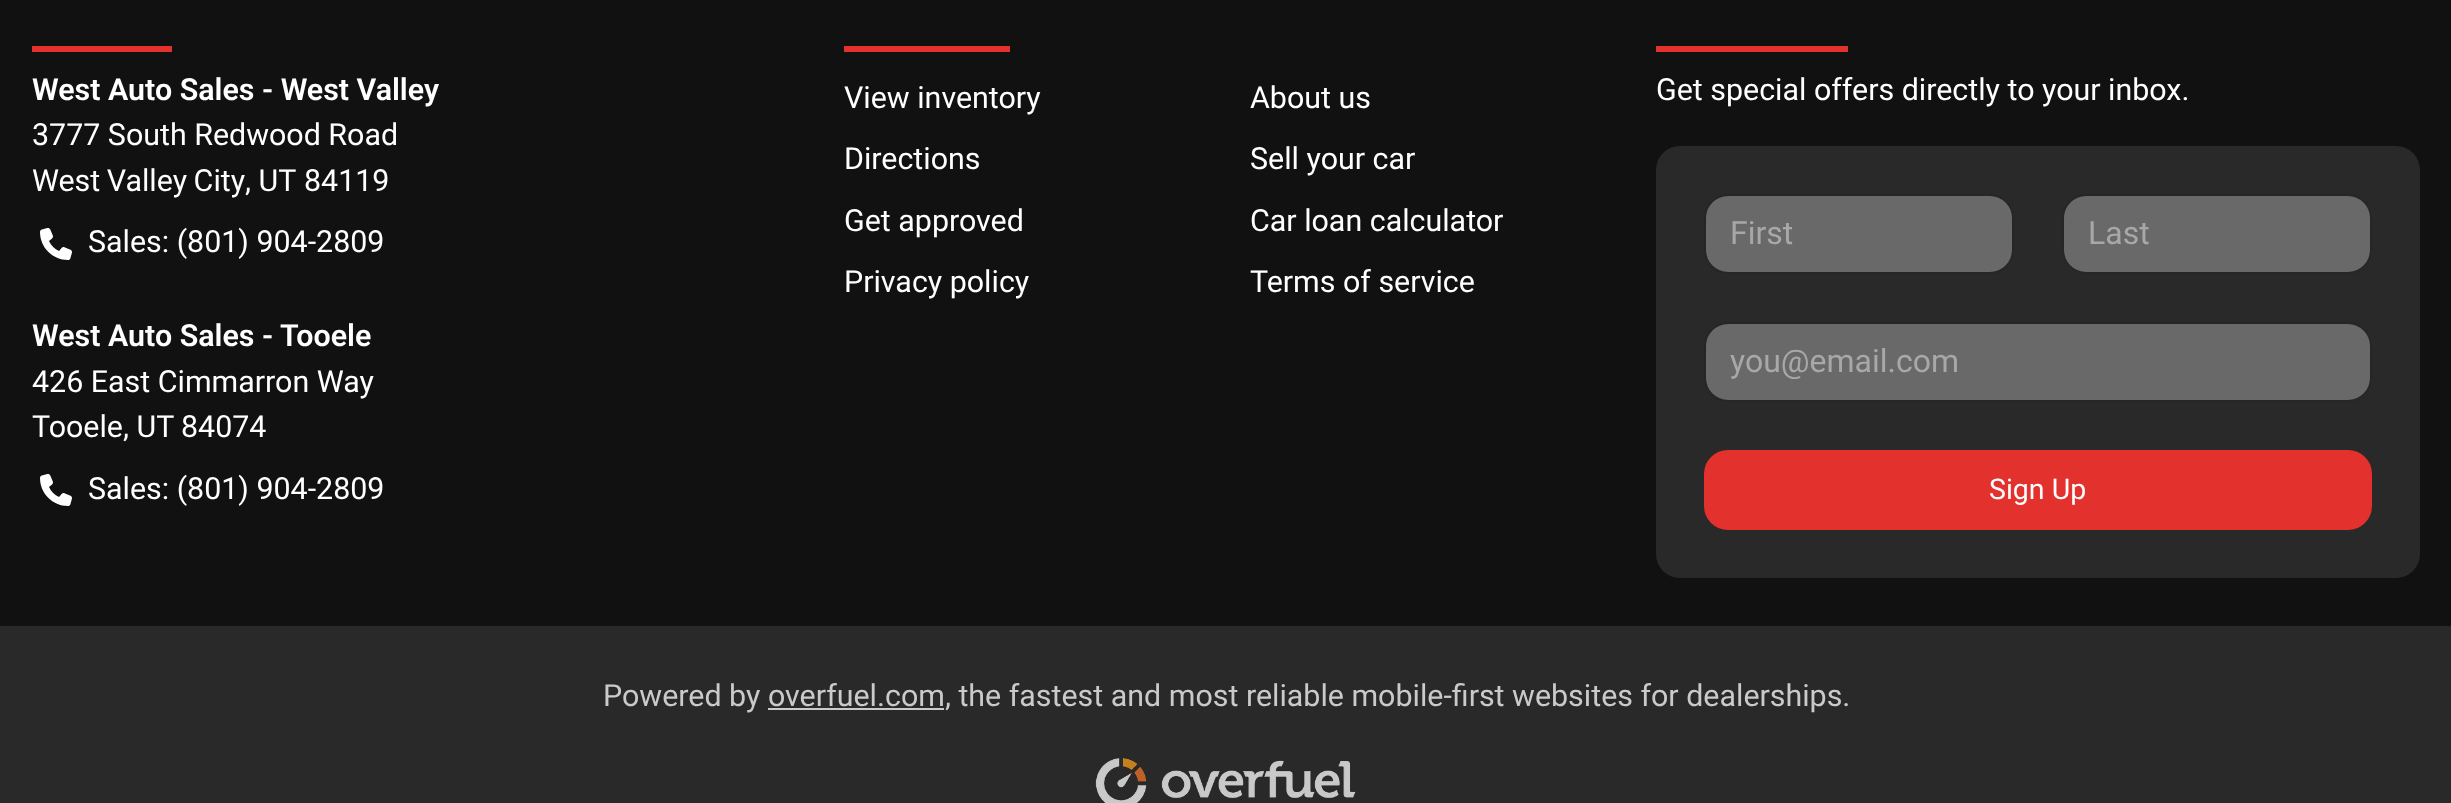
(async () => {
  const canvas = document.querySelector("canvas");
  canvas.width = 2451;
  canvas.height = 803;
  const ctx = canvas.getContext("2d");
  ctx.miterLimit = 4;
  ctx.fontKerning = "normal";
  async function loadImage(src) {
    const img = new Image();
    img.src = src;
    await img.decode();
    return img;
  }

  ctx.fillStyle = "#111111";
  ctx.fillRect(0, 0, 2451, 803);
  ctx.fillStyle = "#e3312d";
  ctx.fillRect(32, 46, 140, 6);
  ctx.drawImage(await loadImage("img/1.png"), 40, 228, 32, 32);
  ctx.drawImage(await loadImage("img/1.png"), 40, 474, 32, 32);
  ctx.fillRect(844, 46, 166, 6);
  ctx.fillRect(1656, 46, 192, 6);
  ctx.fillStyle = "#292929";
  ctx.beginPath();
  ctx.roundRect(1656, 146, 764, 432, 24);
  ctx.fill();
  ctx.fillStyle = "#696969";
  ctx.beginPath();
  ctx.roundRect(1706, 196, 306, 76, 22);
  ctx.fill();
  ctx.beginPath();
  ctx.roundRect(1705, 195, 308, 78, 23);
  ctx.strokeStyle = "rgba(24, 28, 33, 0.15)";
  ctx.lineWidth = 2;
  ctx.stroke();
  ctx.beginPath();
  ctx.roundRect(2064, 196, 306, 76, 22);
  ctx.fill();
  ctx.beginPath();
  ctx.roundRect(2063, 195, 308, 78, 23);
  ctx.stroke();
  ctx.beginPath();
  ctx.roundRect(1706, 324, 664, 76, 22);
  ctx.fill();
  ctx.beginPath();
  ctx.roundRect(1705, 323, 666, 78, 23);
  ctx.stroke();
  ctx.fillStyle = "#e3312d";
  ctx.beginPath();
  ctx.roundRect(1705, 451, 666, 78, 23);
  ctx.fill();
  ctx.strokeStyle = "#e3312d";
  ctx.stroke();
  ctx.fillStyle = "#292929";
  ctx.fillRect(0, 626, 2451, 177);
  ctx.fillStyle = "#cacaca";
  ctx.fillRect(768, 708, 176, 2);
  ctx.drawImage(await loadImage("img/2.png"), 1095, 758, 261, 45);
  ctx.font = "600 30.4px Roboto";
  ctx.fillStyle = "#ffffff";
  ctx.fillText("West Auto Sales - West Valley", 32, 100);
  ctx.font = "30.4px Roboto";
  ctx.fillText("3777 South Redwood Road", 32, 145);
  ctx.wordSpacing = "-1px";
  ctx.fillText("West Valley City", 32, 191);
  ctx.wordSpacing = "0px";
  for (const [text, x, y] of [
    [", UT", 245, 191],
    ["84119", 304, 191],
    ["Sales: (801) 904-2809", 88, 252],
  ]) {
    ctx.fillText(text, x, y);
  }
  ctx.font = "600 30.4px Roboto";
  ctx.fillText("West Auto Sales - Tooele", 32, 346);
  ctx.font = "30.4px Roboto";
  for (const [text, x, y] of [
    ["426 East Cimmarron Way", 32, 392],
    ["Tooele, UT", 32, 437],
    ["84074", 181, 437],
    ["Sales: (801) 904-2809", 88, 499],
    ["View inventory", 844, 108],
    ["About us", 1250, 108],
    ["Directions", 844, 169],
    ["Sell your car", 1250, 169],
    ["Get approved", 844, 231],
    ["Car loan calculator", 1250, 231],
    ["Privacy policy", 844, 292],
    ["Terms of service", 1250, 292],
    ["Get special offers directly to your inbox.", 1656, 100],
  ]) {
    ctx.fillText(text, x, y);
  }
  ctx.font = "32px Roboto";
  ctx.fillStyle = "#a8a8a8";
  for (const [text, x, y] of [
    ["First", 1730, 244],
    ["Last", 2088, 244],
    ["you@email.com", 1730, 372],
  ]) {
    ctx.fillText(text, x, y);
  }
  ctx.font = "28.5px Roboto";
  ctx.fillStyle = "#ffffff";
  ctx.fillText("Sign Up", 1989, 499);
  ctx.font = "30.4px Roboto";
  ctx.fillStyle = "#cacaca";
  ctx.fillText("Powered by overfuel.com, the fastest and most reliable mobile-first websites for dealerships.", 603, 706);
})();
